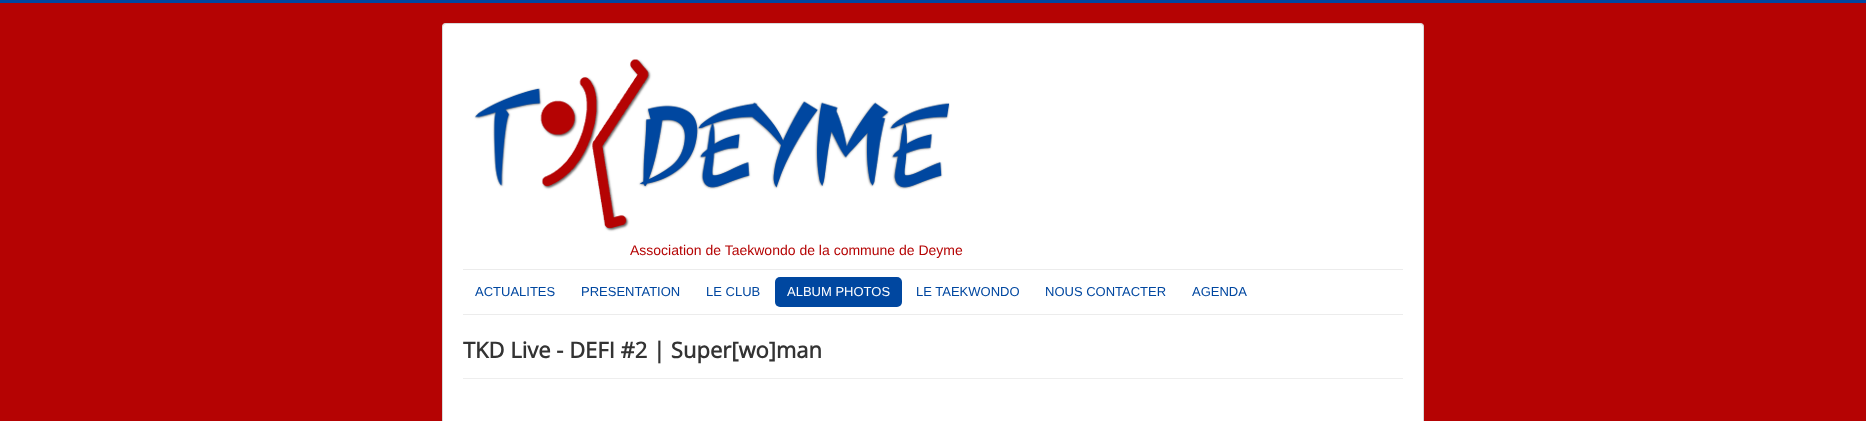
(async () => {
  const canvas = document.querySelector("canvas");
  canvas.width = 1866;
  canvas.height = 421;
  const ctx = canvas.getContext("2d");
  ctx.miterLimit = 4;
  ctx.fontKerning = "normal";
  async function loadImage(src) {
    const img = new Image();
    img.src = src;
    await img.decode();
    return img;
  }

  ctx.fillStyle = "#b50303";
  ctx.fillRect(0, 0, 1866, 421);
  ctx.fillStyle = "#0047a0";
  ctx.fillRect(0, 0, 1866, 3);
  ctx.fillStyle = "#ffffff";
  ctx.beginPath();
  ctx.roundRect(442, 23, 982, 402, 4);
  ctx.fill();
  ctx.beginPath();
  ctx.roundRect(442.5, 23.5, 981, 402, 3.5);
  ctx.strokeStyle = "rgba(0, 0, 0, 0.15)";
  ctx.stroke();
  ctx.drawImage(await loadImage("img/1.png"), 474, 59, 476, 173);
  ctx.fillStyle = "#ececec";
  ctx.fillRect(463, 269, 940, 1);
  ctx.fillRect(463, 314, 940, 1);
  ctx.fillStyle = "#0047a0";
  ctx.beginPath();
  ctx.roundRect(775, 277, 127, 30, 5);
  ctx.fill();
  ctx.fillStyle = "#eeeeee";
  ctx.fillRect(463, 378, 940, 1);
  ctx.font = "14px Liberation Sans";
  ctx.fillStyle = "#b50303";
  ctx.fillText("Association de Taekwondo de la commune de Deyme", 630, 255);
  ctx.font = "13px Liberation Sans";
  ctx.fillStyle = "#0047a0";
  for (const [text, x, y] of [
    ["ACTUALITES", 475, 296],
    ["PRESENTATION", 581, 296],
    ["LE CLUB", 706, 296],
  ]) {
    ctx.fillText(text, x, y);
  }
  ctx.fillStyle = "#ffffff";
  ctx.fillText("ALBUM PHOTOS", 787, 296);
  ctx.fillStyle = "#0047a0";
  for (const [text, x, y] of [
    ["LE TAEKWONDO", 916, 296],
    ["NOUS CONTACTER", 1045, 296],
    ["AGENDA", 1192, 296],
  ]) {
    ctx.fillText(text, x, y);
  }
  ctx.font = "bold 22px Open Sans";
  ctx.fillStyle = "#333333";
  ctx.fillText("TKD Live - DEFI #2 | Super[wo]man", 463, 358);
})();
